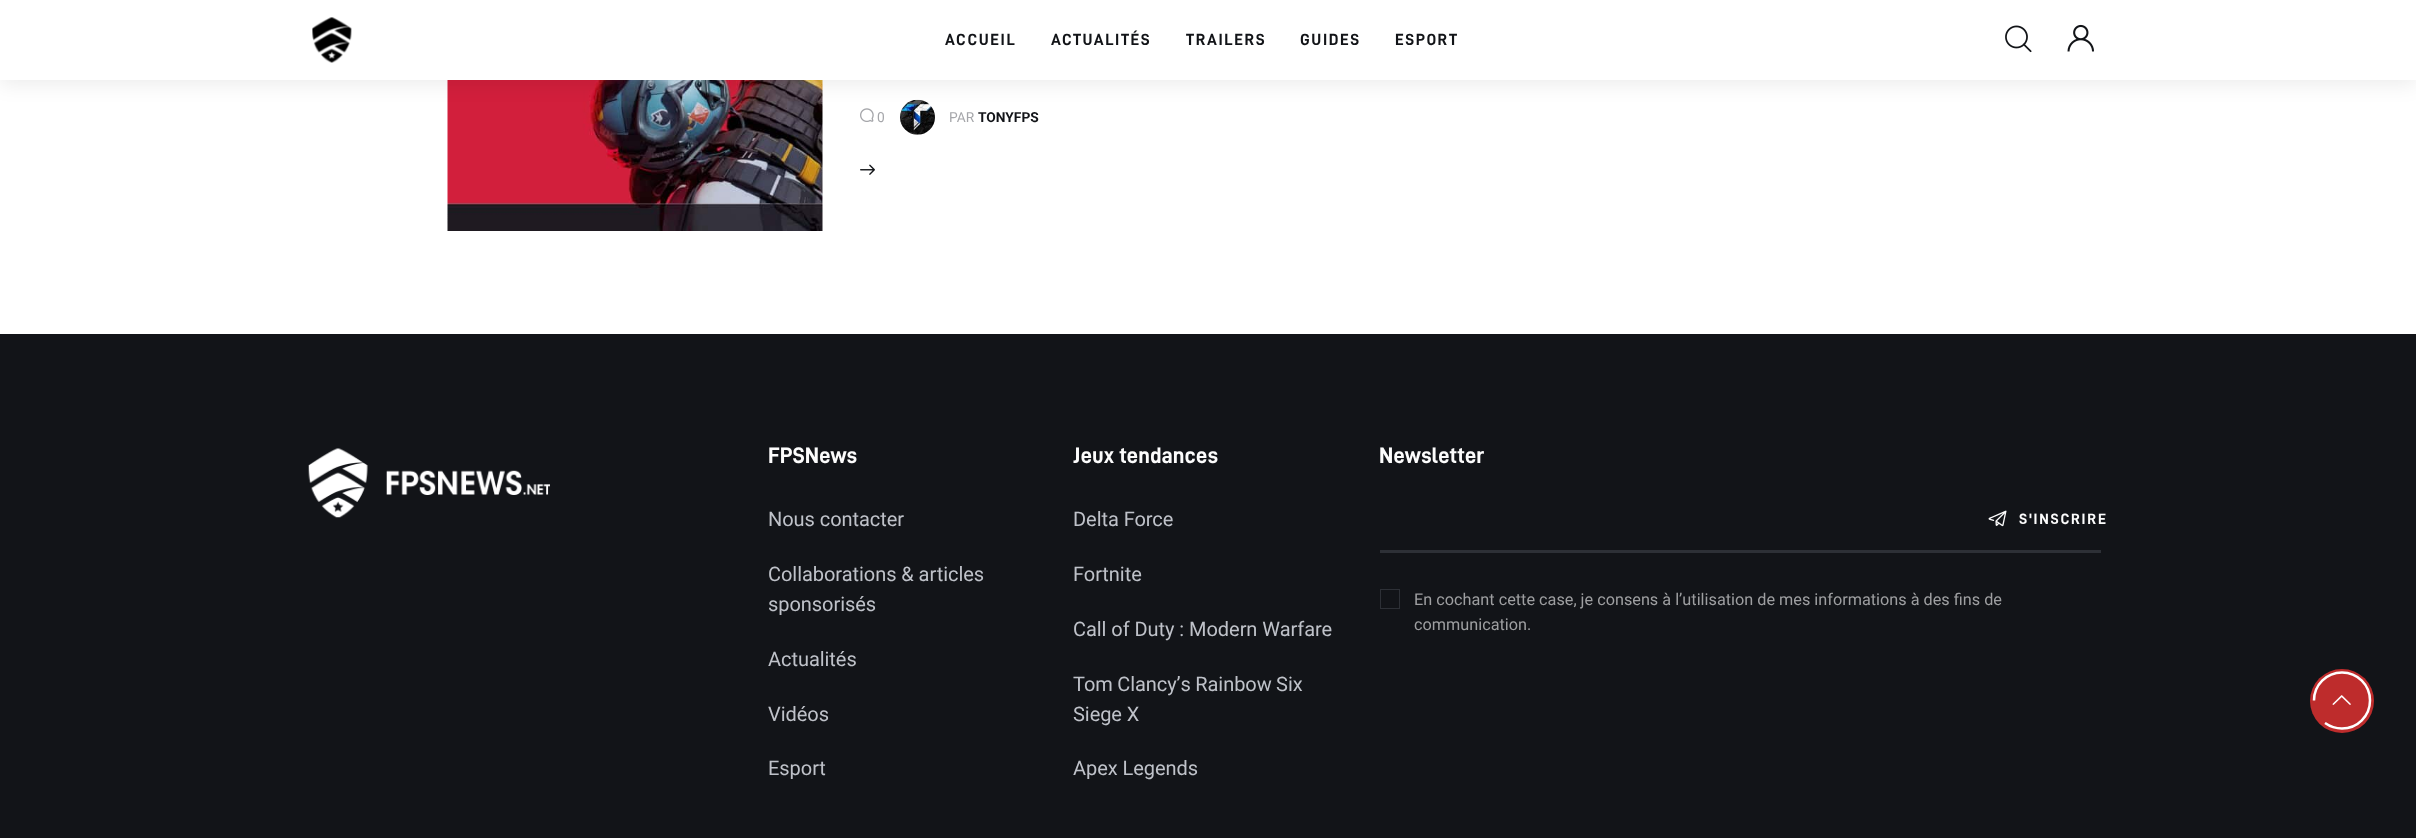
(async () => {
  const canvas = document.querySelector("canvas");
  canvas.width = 2416;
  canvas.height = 838;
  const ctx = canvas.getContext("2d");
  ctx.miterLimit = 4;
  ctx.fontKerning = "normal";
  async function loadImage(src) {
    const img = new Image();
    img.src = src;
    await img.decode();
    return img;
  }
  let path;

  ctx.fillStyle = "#ffffff";
  ctx.fillRect(0, 0, 2416, 838);
  ctx.drawImage(await loadImage("img/4.png"), 447, 80, 376, 151);
  ctx.drawImage(await loadImage("img/5.png"), 860, 108, 14, 14);
  ctx.drawImage(await loadImage("img/6.png"), 900, 99, 35, 36);
  ctx.fillStyle = "rgba(0, 0, 0, 0.08)";
  ctx.filter = "blur(10px)";
  ctx.beginPath();
  ctx.rect(0, 4, 2416, 80);
  ctx.fill();
  ctx.filter = "none";
  ctx.fillStyle = "#ffffff";
  ctx.fillRect(0, 0, 2416, 80);
  ctx.drawImage(await loadImage("img/1.png"), 312, 17, 40, 46);
  ctx.drawImage(await loadImage("img/2.png"), 2005, 25, 27, 28);
  ctx.drawImage(await loadImage("img/3.png"), 2067, 24, 27, 28);
  ctx.drawImage(await loadImage("img/7.png"), 860, 164, 15, 11);
  ctx.fillStyle = "#121418";
  ctx.fillRect(0, 334, 2416, 504);
  ctx.drawImage(await loadImage("img/8.png"), 308, 448, 242, 70);
  ctx.drawImage(await loadImage("img/9.png"), 1988, 510, 19, 17);
  ctx.fillStyle = "#2d3036";
  ctx.fillRect(1380, 550, 721, 3);
  ctx.strokeStyle = "#2d3036";
  ctx.strokeRect(1380.5, 589.5, 19, 19);
  ctx.fillStyle = "#be2c2c";
  ctx.beginPath();
  ctx.arc(2342, 701, 32, 0, Math.PI * 2);
  ctx.fill();
  path = new Path2D("M2314 700.5C2314 685 2326.5 672.5 2342 672.5C2357.5 672.5 2370 685 2370 700.5C2370 716 2357.5 728.5 2342 728.5C2335.5 728.5 2330 726.5 2325 723");
  ctx.strokeStyle = "#ffffff";
  ctx.lineWidth = 2.5;
  ctx.stroke(path);
  ctx.drawImage(await loadImage("img/10.png"), 2332, 695, 19, 10);
  ctx.letterSpacing = "1.6px";
  ctx.font = "bold 16.25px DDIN";
  ctx.fillStyle = "#121418";
  for (const [text, x, y] of [
    ["ACCUEIL", 945, 45],
    ["ACTUALITÉS", 1051, 45],
    ["TRAILERS", 1186, 45],
    ["GUIDES", 1300, 45],
    ["ESPORT", 1395, 45],
  ]) {
    ctx.fillText(text, x, y);
  }
  ctx.letterSpacing = "0px";
  ctx.font = "13.75px Roboto";
  ctx.fillStyle = "#a5a6aa";
  ctx.fillText("0", 877, 122);
  ctx.fillText("PAR", 949, 122);
  ctx.font = "bold 13.75px Roboto";
  ctx.fillStyle = "#121418";
  ctx.fillText("TONYFPS", 978, 122);
  ctx.font = "bold 22.5px DDIN";
  ctx.fillStyle = "#fcfcfc";
  ctx.fillText("FPSNews", 768, 463);
  ctx.letterSpacing = "-0.05px";
  ctx.font = "20px Roboto";
  ctx.fillStyle = "#bfc2c9";
  for (const [text, x, y] of [
    ["Nous contacter", 768, 526],
    ["Collaborations & articles", 768, 581],
    ["sponsorisés", 768, 611],
    ["Actualités", 768, 666],
    ["Vidéos", 768, 721],
    ["Esport", 768, 775],
  ]) {
    ctx.fillText(text, x, y);
  }
  ctx.letterSpacing = "0px";
  ctx.font = "bold 22.5px DDIN";
  ctx.fillStyle = "#fcfcfc";
  ctx.fillText("Jeux tendances", 1073, 463);
  ctx.letterSpacing = "-0.05px";
  ctx.font = "20px Roboto";
  ctx.fillStyle = "#bfc2c9";
  for (const [text, x, y] of [
    ["Delta Force", 1073, 526],
    ["Fortnite", 1073, 581],
    ["Call of Duty : Modern Warfare", 1073, 636],
  ]) {
    ctx.fillText(text, x, y);
  }
  ctx.wordSpacing = "-0.5px";
  ctx.fillText("Tom Clancy’s Rainbow Six", 1073, 691);
  ctx.wordSpacing = "0px";
  ctx.fillText("Siege X", 1073, 721);
  ctx.fillText("Apex Legends", 1073, 775);
  ctx.letterSpacing = "0px";
  ctx.font = "bold 22.5px DDIN";
  ctx.fillStyle = "#fcfcfc";
  ctx.fillText("Newsletter", 1379, 463);
  ctx.letterSpacing = "1.75px";
  ctx.font = "bold 15px DDIN";
  ctx.fillText("S'INSCRIRE", 2019, 524);
  ctx.letterSpacing = "0px";
  ctx.font = "16.25px Roboto";
  ctx.fillStyle = "#9e9fa1";
  ctx.fillText("En cochant cette case, je consens à l’utilisation de mes informations à des fins de", 1414, 605);
  ctx.fillText("communication.", 1414, 630);
})();
